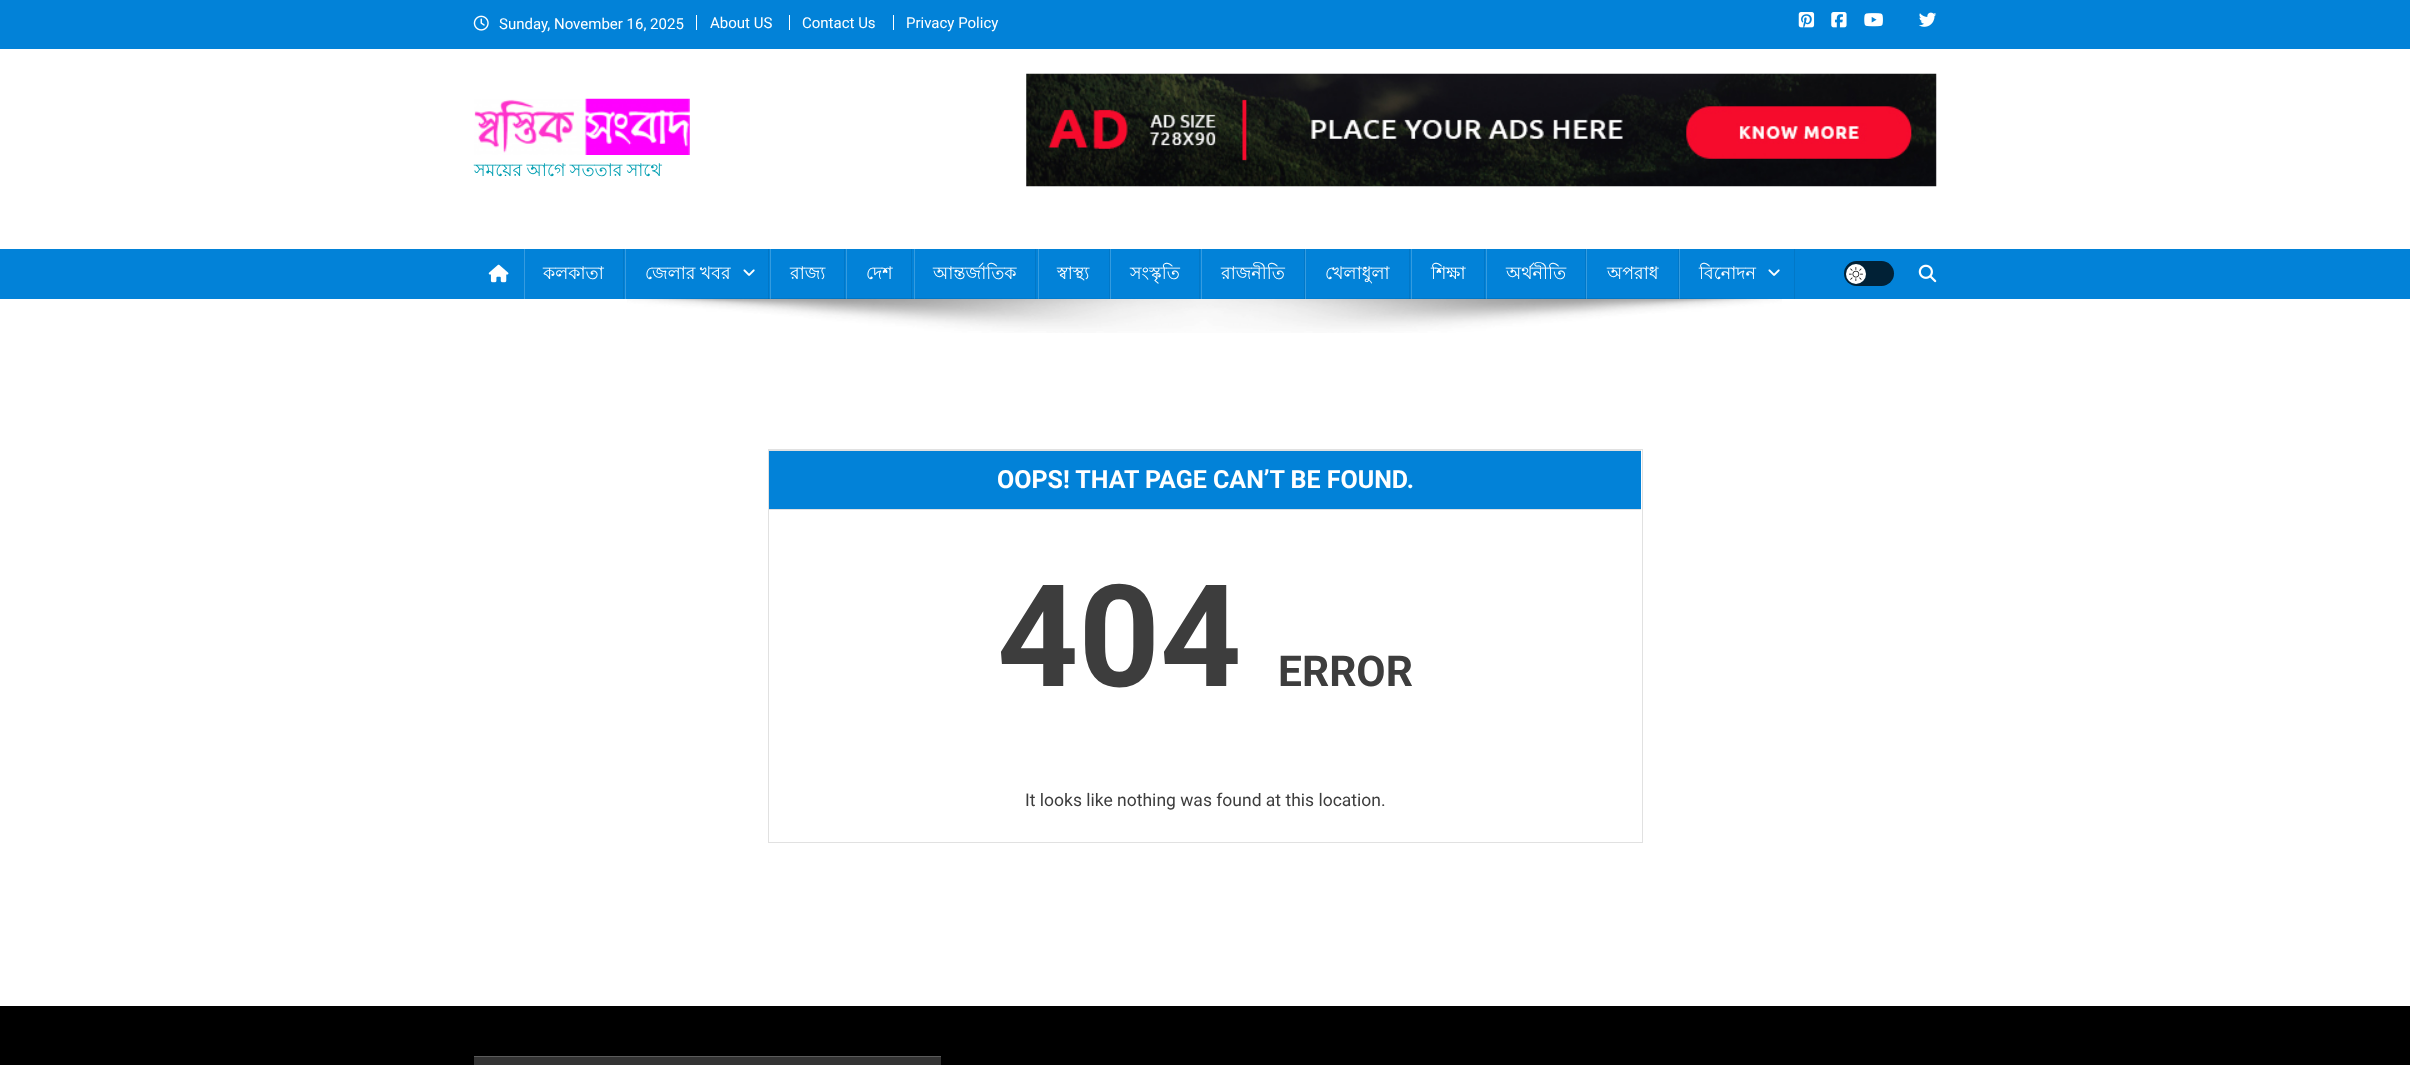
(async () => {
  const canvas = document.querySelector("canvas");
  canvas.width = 2410;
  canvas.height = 1065;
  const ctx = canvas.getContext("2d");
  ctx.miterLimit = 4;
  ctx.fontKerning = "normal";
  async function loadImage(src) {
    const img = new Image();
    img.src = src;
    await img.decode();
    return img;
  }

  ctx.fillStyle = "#ffffff";
  ctx.fillRect(0, 0, 2410, 1065);
  ctx.fillStyle = "#0282d8";
  ctx.fillRect(0, 0, 2410, 49);
  ctx.drawImage(await loadImage("img/1.png"), 473, 15, 16, 16);
  for (const [x, y, w, h, color] of [
    [696, 15, 1, 15, "#ffffff"],
    [789, 15, 1, 15, "#ffffff"],
    [893, 15, 1, 15, "#ffffff"],
  ]) {
    ctx.fillStyle = color;
    ctx.fillRect(x, y, w, h);
  }
  ctx.drawImage(await loadImage("img/2.png"), 1798, 12, 17, 16);
  ctx.drawImage(await loadImage("img/3.png"), 1831, 12, 16, 16);
  ctx.drawImage(await loadImage("img/4.png"), 1864, 13, 19, 14);
  ctx.drawImage(await loadImage("img/5.png"), 1919, 12, 18, 15);
  ctx.drawImage(await loadImage("img/6.png"), 474, 98, 216, 57);
  ctx.drawImage(await loadImage("img/7.png"), 1026, 73, 911, 114);
  for (const [x, y, w, h, color] of [
    [0, 249, 2410, 50, "#0282d8"],
    [1201, 249, 1, 50, "#359be0"],
    [1199, 249, 1, 50, "#0278c7"],
  ]) {
    ctx.fillStyle = color;
    ctx.fillRect(x, y, w, h);
  }
  ctx.drawImage(await loadImage("img/8.png"), 488, 264, 21, 19);
  ctx.fillRect(623, 249, 1, 50);
  ctx.fillStyle = "#359be0";
  ctx.fillRect(524, 249, 1, 50);
  ctx.drawImage(await loadImage("img/12.png"), 627, 298, 1155, 35);
  ctx.fillStyle = "rgba(0, 0, 0, 0.08)";
  ctx.fillRect(768, 249, 1, 50);
  ctx.fillStyle = "#359be0";
  ctx.fillRect(625, 249, 1, 50);
  ctx.drawImage(await loadImage("img/9.png"), 743, 269, 12, 7);
  for (const [x, y, w, h, color] of [
    [844, 249, 1, 50, "rgba(0, 0, 0, 0.08)"],
    [770, 249, 1, 50, "rgba(255, 255, 255, 0.2)"],
    [911, 249, 1, 50, "rgba(0, 0, 0, 0.08)"],
    [846, 249, 1, 50, "rgba(255, 255, 255, 0.2)"],
    [1035, 249, 1, 50, "rgba(0, 0, 0, 0.08)"],
    [914, 249, 1, 50, "rgba(255, 255, 255, 0.2)"],
    [1109, 249, 1, 50, "rgba(0, 0, 0, 0.08)"],
    [1038, 249, 1, 50, "rgba(255, 255, 255, 0.2)"],
    [1110, 249, 1, 50, "rgba(255, 255, 255, 0.2)"],
    [1304, 249, 1, 50, "rgba(0, 0, 0, 0.08)"],
    [1409, 249, 1, 50, "rgba(0, 0, 0, 0.08)"],
    [1305, 249, 1, 50, "rgba(255, 255, 255, 0.2)"],
    [1484, 249, 1, 50, "rgba(0, 0, 0, 0.08)"],
    [1411, 249, 1, 50, "rgba(255, 255, 255, 0.2)"],
    [1585, 249, 1, 50, "rgba(0, 0, 0, 0.08)"],
    [1486, 249, 1, 50, "rgba(255, 255, 255, 0.2)"],
    [1678, 249, 1, 50, "rgba(0, 0, 0, 0.08)"],
    [1586, 249, 1, 50, "rgba(255, 255, 255, 0.2)"],
    [1794, 249, 1, 50, "#0278c7"],
    [1679, 249, 1, 50, "rgba(255, 255, 255, 0.2)"],
  ]) {
    ctx.fillStyle = color;
    ctx.fillRect(x, y, w, h);
  }
  ctx.drawImage(await loadImage("img/9.png"), 1768, 269, 12, 7);
  ctx.fillStyle = "#012136";
  ctx.beginPath();
  ctx.roundRect(1844, 261, 50, 25, 12.5);
  ctx.fill();
  ctx.fillStyle = "#ffffff";
  ctx.beginPath();
  ctx.arc(1856, 274, 10, 0, Math.PI * 2);
  ctx.fill();
  ctx.drawImage(await loadImage("img/10.png"), 1849, 267, 14, 14);
  ctx.drawImage(await loadImage("img/11.png"), 1918, 264, 19, 19);
  ctx.strokeStyle = "#e1e1e1";
  ctx.strokeRect(768.5, 449.5, 874, 393);
  for (const [x, y, w, h, color] of [
    [769, 451, 872, 58, "#0282d8"],
    [769, 450, 872, 1, "#e1e1e1"],
    [769, 509, 872, 1, "#e1e1e1"],
    [0, 1006, 2410, 59, "#000000"],
    [474, 1057, 467, 8, "#333333"],
    [474, 1056, 467, 1, "#5c5c5c"],
  ]) {
    ctx.fillStyle = color;
    ctx.fillRect(x, y, w, h);
  }
  ctx.font = "15px Roboto";
  ctx.fillStyle = "#ffffff";
  for (const [text, x, y] of [
    ["Sunday, November 16, 2025", 499, 29],
    ["About US", 710, 28],
    ["Contact Us", 802, 28],
    ["Privacy Policy", 906, 28],
  ]) {
    ctx.fillText(text, x, y);
  }
  ctx.wordSpacing = "-0.5px";
  ctx.font = "17.5px Lohit Bengali";
  ctx.fillStyle = "#029fb2";
  ctx.fillText("সময়ের আগে সততার সাথে", 474, 176);
  ctx.wordSpacing = "0px";
  ctx.fillStyle = "#ffffff";
  ctx.fillText("কলকাতা", 543, 279);
  ctx.wordSpacing = "-0.5px";
  ctx.fillText("জেলার খবর", 645, 279);
  ctx.wordSpacing = "0px";
  for (const [text, x, y] of [
    ["রাজ্য", 790, 279],
    ["দেশ", 866, 279],
    ["আন্তর্জাতিক", 933, 279],
    ["স্বাস্থ্য", 1057, 279],
    ["সংস্কৃতি", 1130, 279],
    ["রাজনীতি", 1221, 279],
    ["খেলাধুলা", 1325, 279],
    ["শিক্ষা", 1431, 279],
    ["অর্থনীতি", 1506, 279],
    ["অপরাধ", 1607, 279],
    ["বিনোদন", 1699, 279],
  ]) {
    ctx.fillText(text, x, y);
  }
  ctx.font = "bold 25px Roboto";
  ctx.fillText("OOPS! THAT PAGE CAN’T BE FOUND.", 997, 488);
  ctx.font = "bold 142px Roboto";
  ctx.fillStyle = "#3d3d3d";
  ctx.fillText("404", 997, 686);
  ctx.font = "bold 42.5px Roboto";
  ctx.fillText("ERROR", 1278, 686);
  ctx.font = "17.5px Roboto";
  ctx.fillText("It looks like nothing was found at this location.", 1025, 806);
})();
